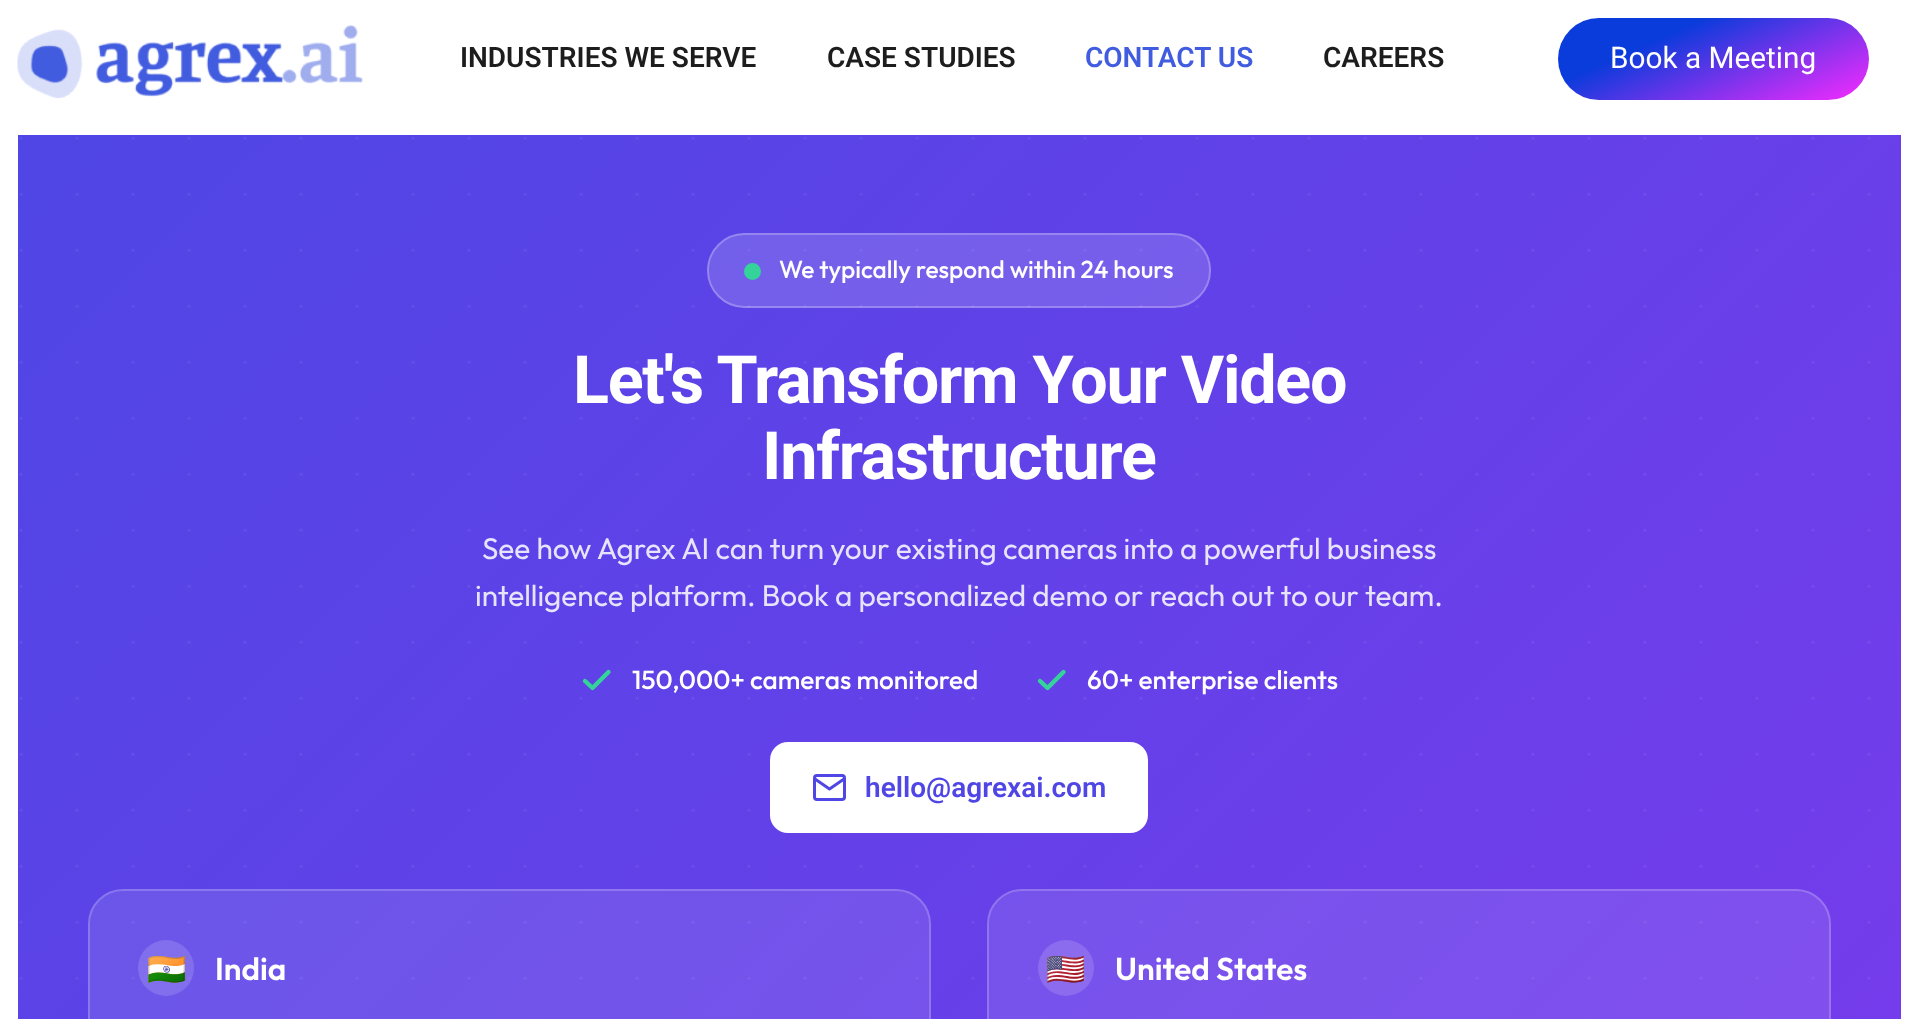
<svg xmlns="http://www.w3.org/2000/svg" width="1917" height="1019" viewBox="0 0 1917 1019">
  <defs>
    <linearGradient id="g1" gradientUnits="userSpaceOnUse" x1="1672" y1="-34" x2="1754" y2="151"><stop offset="0.3" stop-color="rgb(10,59,219)"/><stop offset="1" stop-color="rgb(248,43,254)"/></linearGradient>
    <linearGradient id="g2" gradientUnits="userSpaceOnUse" x1="128" y1="24" x2="1790" y2="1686"><stop offset="0" stop-color="rgb(79,70,229)"/><stop offset="1" stop-color="rgb(124,58,237)"/></linearGradient>
  </defs>
  <rect width="100%" height="100%" fill="rgb(255,255,255)"/>
  <image x="17" y="25" width="346" height="73" href="pic1.png"/>
  <g font-family="Roboto" font-size="28" font-weight="600" fill="rgb(29,29,29)">
    <text x="460" y="67">INDUSTRIES WE SERVE</text>
    <text x="827" y="67">CASE STUDIES</text>
  </g>
  <text x="1085" y="67" font-family="Roboto" font-size="28" font-weight="600" fill="rgb(66,92,223)">CONTACT US</text>
  <text x="1323" y="67" font-family="Roboto" font-size="28" font-weight="600" fill="rgb(29,29,29)">CAREERS</text>
  <rect x="1558" y="18" width="311" height="82" rx="41" fill="url(#g1)"/>
  <text x="1610" y="68" font-family="Roboto" font-size="29.75" fill="rgb(255,255,255)">Book a Meeting</text>
  <rect x="18" y="135" width="1883" height="884" fill="url(#g2)"/>
  <path d="M21 138.2H1869.4" fill="none" stroke="rgba(255,255,255,0.06)" stroke-width="3.5" stroke-linecap="round" stroke-dasharray="0 56"/>
  <path d="M21 194.2H1869.4" fill="none" stroke="rgba(255,255,255,0.06)" stroke-width="3.5" stroke-linecap="round" stroke-dasharray="0 56"/>
  <path d="M21 250.2H1869.4" fill="none" stroke="rgba(255,255,255,0.06)" stroke-width="3.5" stroke-linecap="round" stroke-dasharray="0 56"/>
  <path d="M21 306.2H1869.4" fill="none" stroke="rgba(255,255,255,0.06)" stroke-width="3.5" stroke-linecap="round" stroke-dasharray="0 56"/>
  <path d="M21 362.2H1869.4" fill="none" stroke="rgba(255,255,255,0.06)" stroke-width="3.5" stroke-linecap="round" stroke-dasharray="0 56"/>
  <path d="M21 418.2H1869.4" fill="none" stroke="rgba(255,255,255,0.06)" stroke-width="3.5" stroke-linecap="round" stroke-dasharray="0 56"/>
  <path d="M21 474.2H1869.4" fill="none" stroke="rgba(255,255,255,0.06)" stroke-width="3.5" stroke-linecap="round" stroke-dasharray="0 56"/>
  <path d="M21 530.2H1869.4" fill="none" stroke="rgba(255,255,255,0.06)" stroke-width="3.5" stroke-linecap="round" stroke-dasharray="0 56"/>
  <path d="M21 586.2H1869.4" fill="none" stroke="rgba(255,255,255,0.06)" stroke-width="3.5" stroke-linecap="round" stroke-dasharray="0 56"/>
  <path d="M21 642.2H1869.4" fill="none" stroke="rgba(255,255,255,0.06)" stroke-width="3.5" stroke-linecap="round" stroke-dasharray="0 56"/>
  <path d="M21 698.2H1869.4" fill="none" stroke="rgba(255,255,255,0.06)" stroke-width="3.5" stroke-linecap="round" stroke-dasharray="0 56"/>
  <path d="M21 754.2H1869.4" fill="none" stroke="rgba(255,255,255,0.06)" stroke-width="3.5" stroke-linecap="round" stroke-dasharray="0 56"/>
  <path d="M21 810.2H1869.4" fill="none" stroke="rgba(255,255,255,0.06)" stroke-width="3.5" stroke-linecap="round" stroke-dasharray="0 56"/>
  <path d="M21 866.2H1869.4" fill="none" stroke="rgba(255,255,255,0.06)" stroke-width="3.5" stroke-linecap="round" stroke-dasharray="0 56"/>
  <path d="M21 922.2H1869.4" fill="none" stroke="rgba(255,255,255,0.06)" stroke-width="3.5" stroke-linecap="round" stroke-dasharray="0 56"/>
  <path d="M21 978.2H1869.4" fill="none" stroke="rgba(255,255,255,0.06)" stroke-width="3.5" stroke-linecap="round" stroke-dasharray="0 56"/>
  <rect x="707" y="233" width="504" height="75" rx="37.5" fill="rgba(255,255,255,0.15)"/>
  <rect x="708" y="234" width="502" height="73" rx="36.5" fill="none" stroke="rgba(255,255,255,0.25)" stroke-width="2"/>
  <circle cx="752.5" cy="271.5" r="8.5" fill="rgb(52,211,153)"/>
  <text x="779" y="278" font-family="Outfit" font-size="24.5" font-weight="500" fill="rgb(255,255,255)">We typically respond within 24 hours</text>
  <g font-family="Roboto" font-size="66.5" font-weight="bold" letter-spacing="-1.3" fill="rgb(255,255,255)">
    <text x="573" y="403">Let's Transform Your Video</text>
    <text x="762" y="479">Infrastructure</text>
  </g>
  <g font-family="Outfit" font-size="29.75" fill="rgb(231,227,252)">
    <text x="482" y="559">See how Agrex AI can turn your existing cameras into a powerful business</text>
    <text x="475" y="606">intelligence platform. Book a personalized demo or reach out to our team.</text>
  </g>
  <path d="M608.5 672L592.5 688L585 681" fill="none" stroke="rgb(52,211,153)" stroke-width="4.4" stroke-linecap="round" stroke-linejoin="round"/>
  <text x="632" y="689" font-family="Outfit" font-size="26.25" font-weight="500" fill="rgb(255,255,255)">150,000+ cameras monitored</text>
  <path d="M1063.5 672L1047.5 688L1040 681" fill="none" stroke="rgb(52,211,153)" stroke-width="4.4" stroke-linecap="round" stroke-linejoin="round"/>
  <text x="1087" y="689" font-family="Outfit" font-size="26.25" font-weight="500" fill="rgb(255,255,255)">60+ enterprise clients</text>
  <rect x="770" y="742" width="378" height="91" rx="18" fill="rgb(255,255,255)"/>
  <rect x="814.5" y="775.5" width="30" height="24" rx="2.5" fill="none" stroke="rgb(79,70,229)" stroke-width="3"/>
  <path d="M844 779L829.5 789L815 779" fill="none" stroke="rgb(79,70,229)" stroke-width="2.9" stroke-linecap="round" stroke-linejoin="round"/>
  <text x="865" y="797" font-family="Roboto" font-size="28" font-weight="600" fill="rgb(79,70,229)">hello@agrexai.com</text>
  <rect x="88" y="889" width="843" height="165" rx="35" fill="rgba(255,255,255,0.1)"/>
  <rect x="89" y="890" width="841" height="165" rx="34" fill="none" stroke="rgba(255,255,255,0.2)" stroke-width="2"/>
  <circle cx="166" cy="968" r="28" fill="rgba(255,255,255,0.15)"/>
  <text x="147" y="980" font-family="Noto Color Emoji" font-size="31.5" fill="rgb(51,51,51)">🇮🇳</text>
  <text x="215" y="980" font-family="Outfit" font-size="31.5" font-weight="600" fill="rgb(255,255,255)">India</text>
  <rect x="987" y="889" width="844" height="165" rx="35" fill="rgba(255,255,255,0.1)"/>
  <rect x="988" y="890" width="842" height="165" rx="34" fill="none" stroke="rgba(255,255,255,0.2)" stroke-width="2"/>
  <circle cx="1066" cy="968" r="28" fill="rgba(255,255,255,0.15)"/>
  <text x="1046" y="980" font-family="Noto Color Emoji" font-size="31.5" fill="rgb(51,51,51)">🇺🇸</text>
  <text x="1115" y="980" font-family="Outfit" font-size="31.5" font-weight="600" fill="rgb(255,255,255)">United States</text>
</svg>
